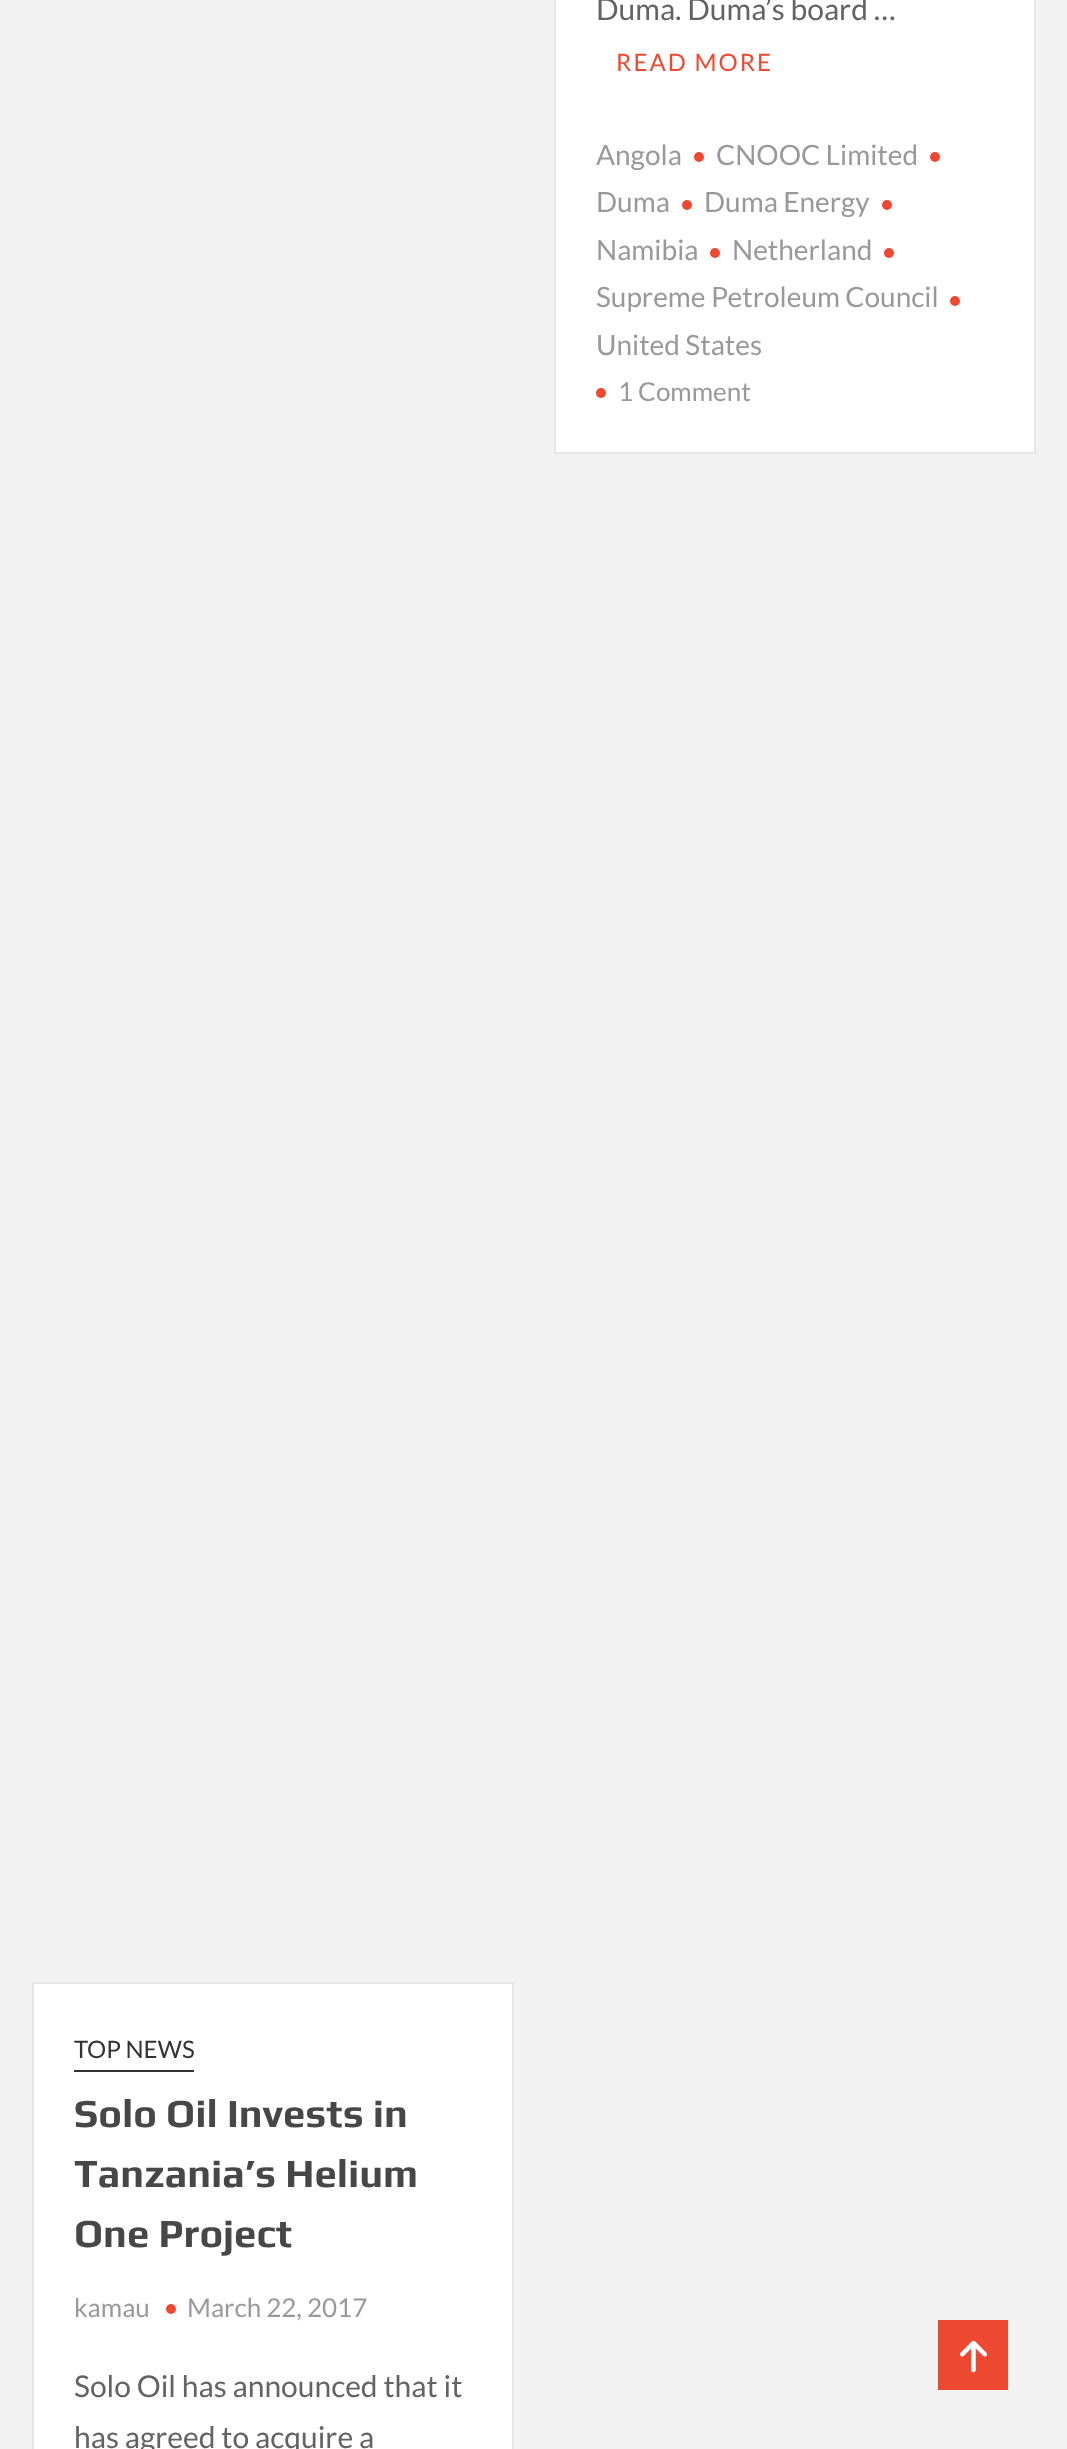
<svg xmlns="http://www.w3.org/2000/svg" width="1067" height="2449" viewBox="0 0 1067 2449">
  <rect width="100%" height="100%" fill="rgb(242,242,242)"/>
  <rect x="555" y="-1" width="480" height="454" fill="rgb(255,255,255)" stroke="rgb(230,230,230)" stroke-width="2"/>
  <text x="596" y="20" font-family="Lato" font-size="30" fill="rgb(99,99,99)">Duma. Duma’s board …</text>
  <text x="616" y="71" font-family="Lato" font-size="24" letter-spacing="2" fill="rgb(238,73,48)">READ MORE</text>
  <text x="596" y="165" font-family="Lato" font-size="28" fill="rgb(153,153,153)">Angola</text>
  <circle cx="699" cy="157" r="5" fill="rgb(238,73,48)"/>
  <text x="716" y="165" font-family="Lato" font-size="28" fill="rgb(153,153,153)">CNOOC Limited</text>
  <circle cx="935" cy="157" r="5" fill="rgb(238,73,48)"/>
  <text x="596" y="212" font-family="Lato" font-size="28" fill="rgb(153,153,153)">Duma</text>
  <circle cx="687" cy="205" r="5" fill="rgb(238,73,48)"/>
  <text x="704" y="212" font-family="Lato" font-size="28" fill="rgb(153,153,153)">Duma Energy</text>
  <circle cx="887" cy="205" r="5" fill="rgb(238,73,48)"/>
  <text x="596" y="260" font-family="Lato" font-size="28" fill="rgb(153,153,153)">Namibia</text>
  <circle cx="715" cy="253" r="5" fill="rgb(238,73,48)"/>
  <text x="732" y="260" font-family="Lato" font-size="28" fill="rgb(153,153,153)">Netherland</text>
  <circle cx="889" cy="253" r="5" fill="rgb(238,73,48)"/>
  <text x="596" y="307" font-family="Lato" font-size="28" fill="rgb(153,153,153)">Supreme Petroleum Council</text>
  <circle cx="955" cy="301" r="5" fill="rgb(238,73,48)"/>
  <text x="596" y="355" font-family="Lato" font-size="28" fill="rgb(153,153,153)">United States</text>
  <circle cx="601" cy="393" r="5" fill="rgb(238,73,48)"/>
  <text x="618" y="401" font-family="Lato" font-size="26" fill="rgb(153,153,153)">1 Comment</text>
  <rect x="33" y="1983" width="480" height="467" fill="rgb(255,255,255)" stroke="rgb(230,230,230)" stroke-width="2"/>
  <rect x="74" y="2070" width="120" height="2" fill="rgb(51,51,51)"/>
  <text x="74" y="2058" font-family="Lato" font-size="24" fill="rgb(51,51,51)">TOP NEWS</text>
  <g font-family="Play" font-size="40" font-weight="bold" fill="rgb(71,71,71)">
    <text>
      <tspan x="74" y="2127">Solo Oil Invests in</tspan>
      <tspan x="74" y="2187">Tanzania’s Helium</tspan>
      <tspan x="74" y="2247">One Project</tspan>
    </text>
  </g>
  <text x="74" y="2317" font-family="Lato" font-size="26" fill="rgb(153,153,153)">kamau</text>
  <circle cx="171" cy="2309" r="5" fill="rgb(238,73,48)"/>
  <text x="187" y="2317" font-family="Lato" font-size="26" fill="rgb(153,153,153)">March 22, 2017</text>
  <g font-family="Lato" font-size="30" fill="rgb(99,99,99)">
    <text>
      <tspan x="74" y="2397">Solo Oil has announced that it</tspan>
      <tspan x="74" y="2448">has agreed to acquire a</tspan>
    </text>
  </g>
  <rect x="938" y="2320" width="70" height="70" fill="rgb(238,73,48)"/>
  <image x="960" y="2340" width="27" height="33" href="pic1.png"/>
</svg>
